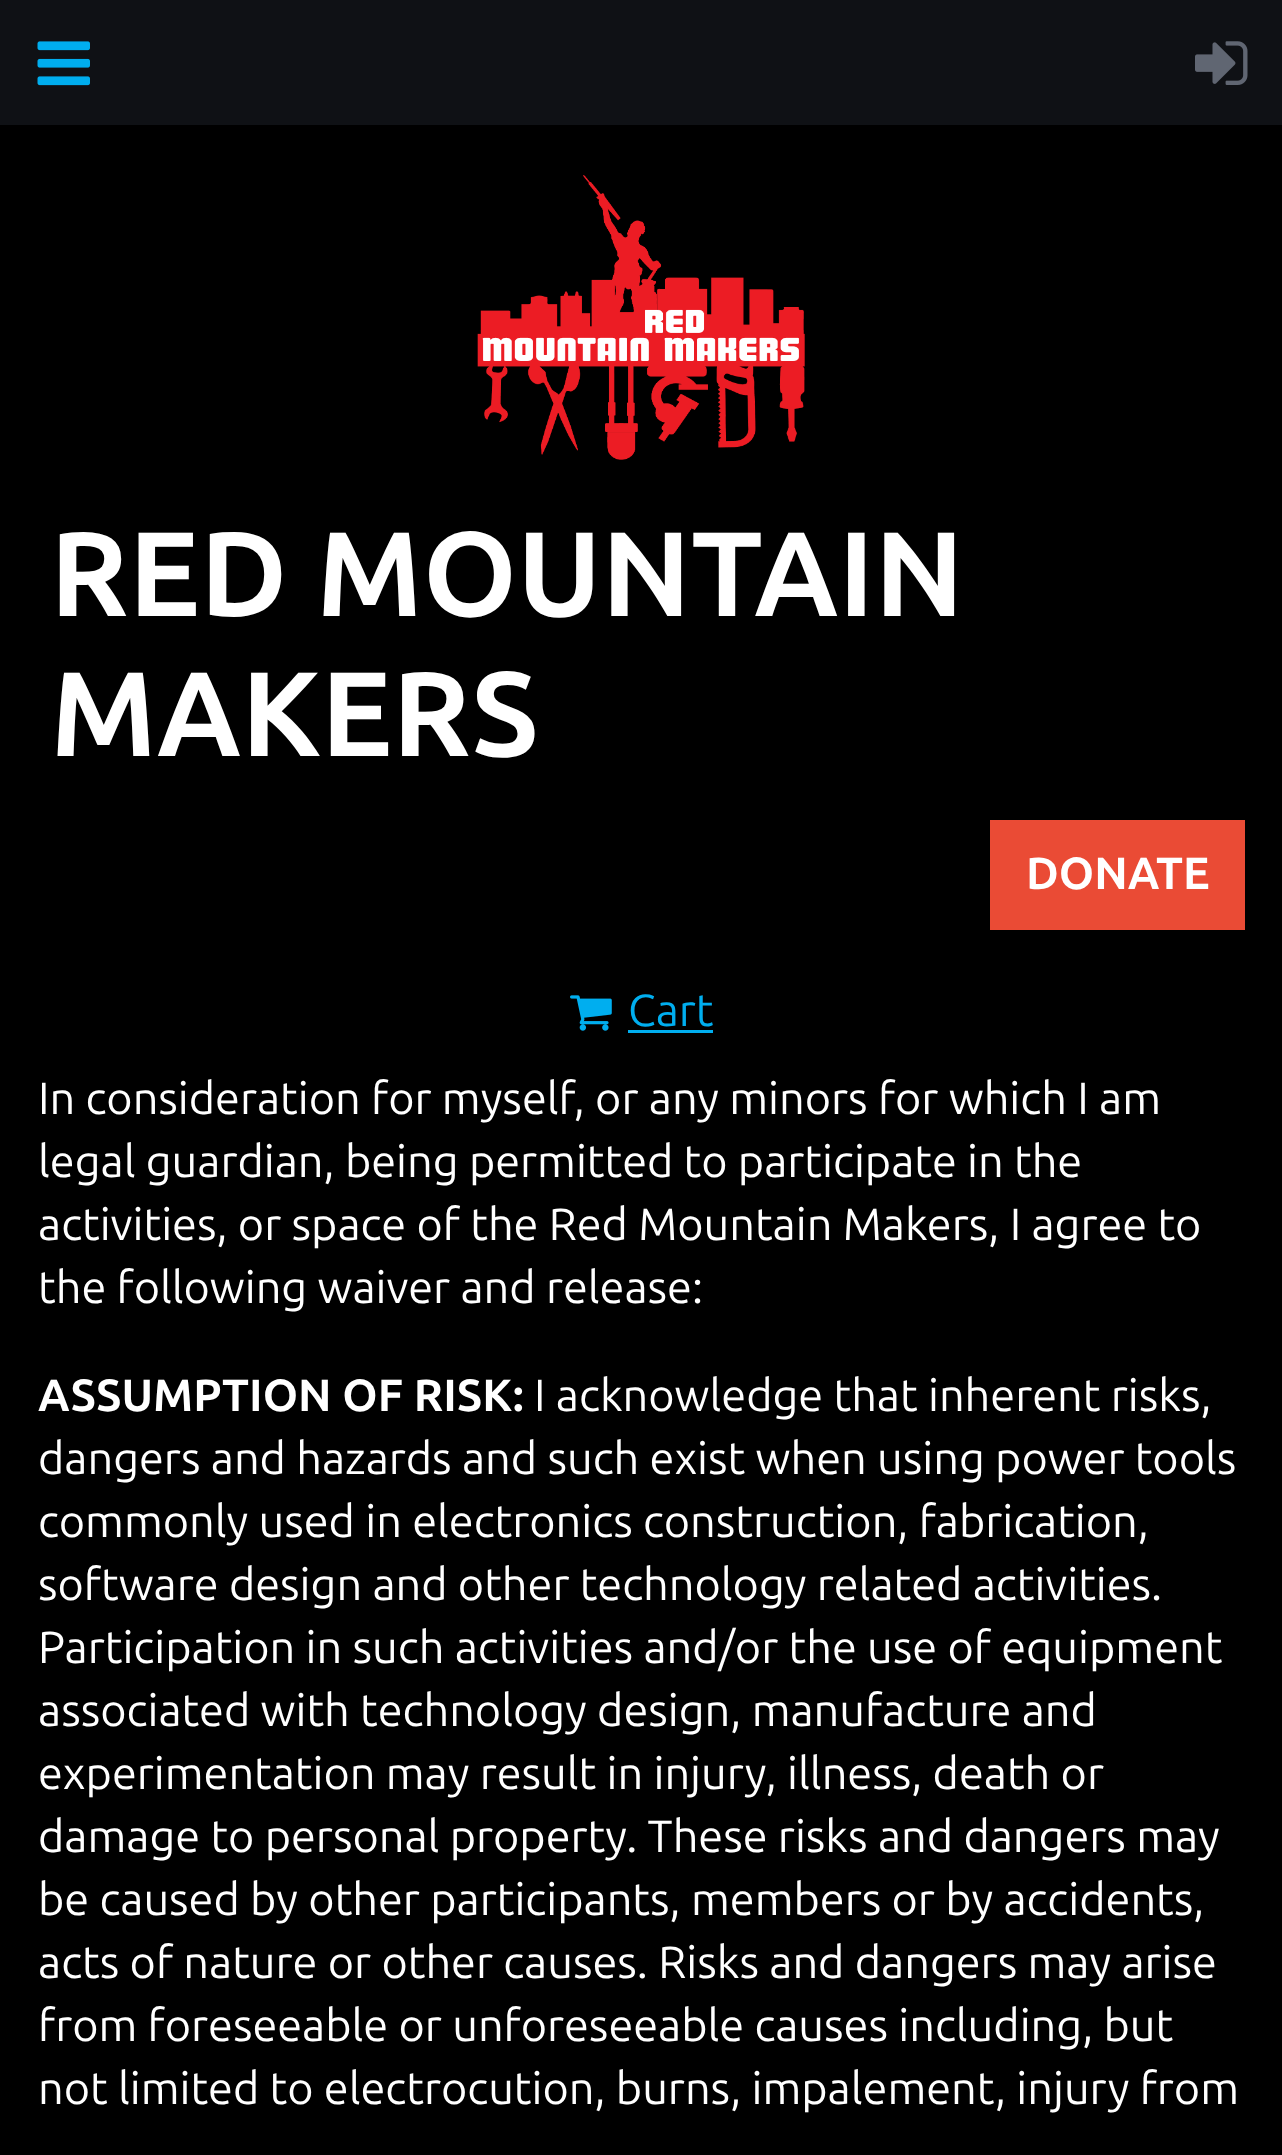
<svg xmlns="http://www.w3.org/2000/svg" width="1282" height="2155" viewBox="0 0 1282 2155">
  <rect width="100%" height="100%" fill="rgb(0,0,0)"/>
  <rect x="0" y="0" width="1282" height="125" fill="rgb(15,17,21)"/>
  <image x="37" y="41" width="53" height="45" href="pic1.png"/>
  <image x="1195" y="41" width="53" height="44" href="pic2.png"/>
  <image x="477" y="175" width="328" height="285" href="pic3.png"/>
  <g font-family="Ubuntu" font-size="120" font-weight="bold" fill="rgb(255,255,255)">
    <text>
      <tspan x="50" y="616">RED MOUNTAIN</tspan>
      <tspan x="50" y="756">MAKERS</tspan>
    </text>
  </g>
  <rect x="990" y="820" width="255" height="110" fill="rgb(234,75,53)"/>
  <text x="1026" y="889" font-family="Ubuntu" font-size="45" font-weight="bold" fill="rgb(255,255,255)">DONATE</text>
  <image x="570" y="995" width="42" height="36" href="pic4.png"/>
  <text x="628" y="1026" font-family="Ubuntu" font-size="45" fill="rgb(0,174,239)">Cart</text>
  <rect x="628" y="1030" width="85" height="3" fill="rgb(0,174,239)"/>
  <g font-family="Ubuntu" font-size="45" fill="rgb(255,255,255)">
    <text>
      <tspan x="38" y="1114">In consideration for myself, or any minors for which I am</tspan>
      <tspan x="38" y="1177">legal guardian, being permitted to participate in the</tspan>
      <tspan x="38" y="1240">activities, or space of the Red Mountain Makers, I agree to</tspan>
      <tspan x="38" y="1303">the following waiver and release:</tspan>
    </text>
  </g>
  <text x="38" y="1411" font-family="Ubuntu" font-size="45" font-weight="bold" fill="rgb(255,255,255)">ASSUMPTION OF RISK:</text>
  <g font-family="Ubuntu" font-size="45" fill="rgb(255,255,255)">
    <text x="534" y="1411">I acknowledge that inherent risks,</text>
    <text>
      <tspan x="38" y="1474">dangers and hazards and such exist when using power tools</tspan>
      <tspan x="38" y="1537">commonly used in electronics construction, fabrication,</tspan>
      <tspan x="38" y="1600">software design and other technology related activities.</tspan>
      <tspan x="38" y="1663">Participation in such activities and/or the use of equipment</tspan>
      <tspan x="38" y="1726">associated with technology design, manufacture and</tspan>
      <tspan x="38" y="1789">experimentation may result in injury, illness, death or</tspan>
      <tspan x="38" y="1852">damage to personal property. These risks and dangers may</tspan>
      <tspan x="38" y="1915">be caused by other participants, members or by accidents,</tspan>
      <tspan x="38" y="1978">acts of nature or other causes. Risks and dangers may arise</tspan>
      <tspan x="38" y="2041">from foreseeable or unforeseeable causes including, but</tspan>
      <tspan x="38" y="2104">not limited to electrocution, burns, impalement, injury from</tspan>
    </text>
  </g>
</svg>
